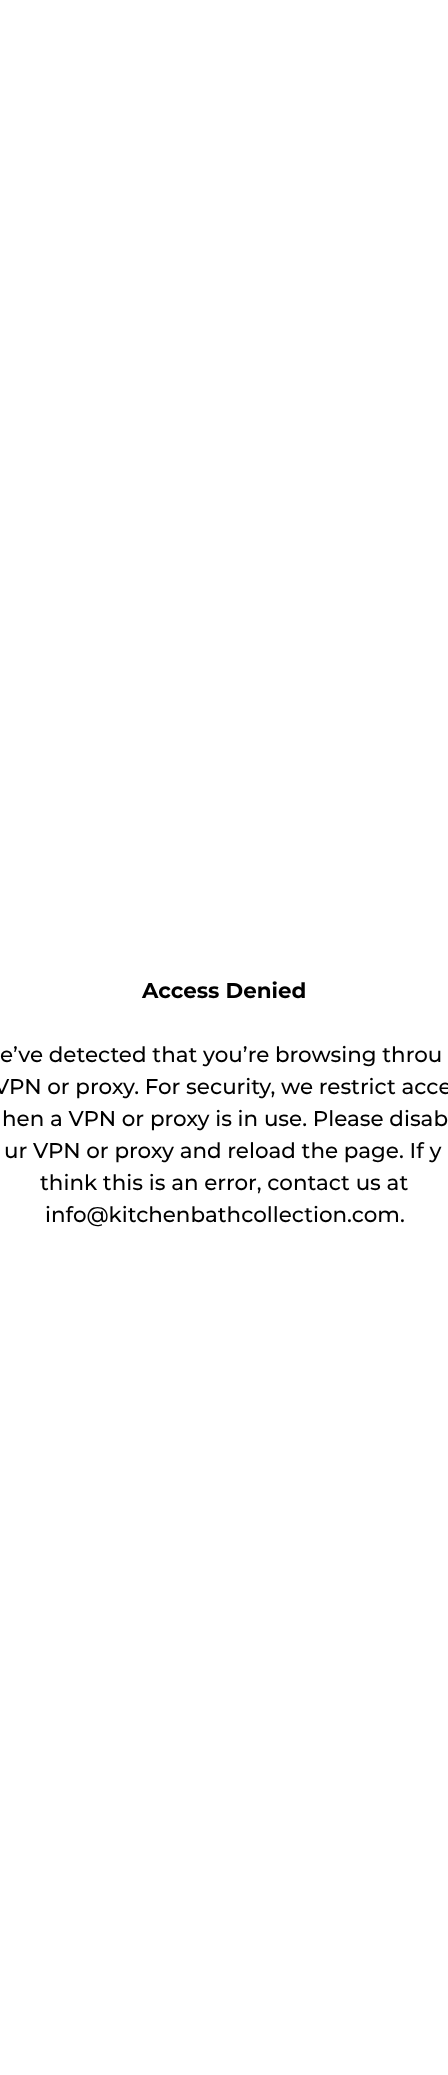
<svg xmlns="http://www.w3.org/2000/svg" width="448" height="2075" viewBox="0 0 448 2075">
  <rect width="100%" height="100%" fill="rgb(255,255,255)"/>
  <text x="142" y="998" font-family="Montserrat" font-size="21.4" font-weight="bold" fill="rgb(0,0,0)">Access Denied</text>
  <g font-family="Montserrat" font-size="21.4" font-weight="500" fill="rgb(0,0,0)">
    <text x="0" y="1062">e’ve detected that you’re browsing throu</text>
    <text x="-6" y="1094">VPN or proxy. For security, we restrict acce</text>
    <text x="2" y="1126">hen a VPN or proxy is in use. Please disab</text>
    <text x="4" y="1158">ur VPN or proxy and reload the page. If y</text>
    <text x="40" y="1190">think this is an error, contact us at</text>
    <text x="45" y="1222">info@kitchenbathcollection.com.</text>
  </g>
</svg>
